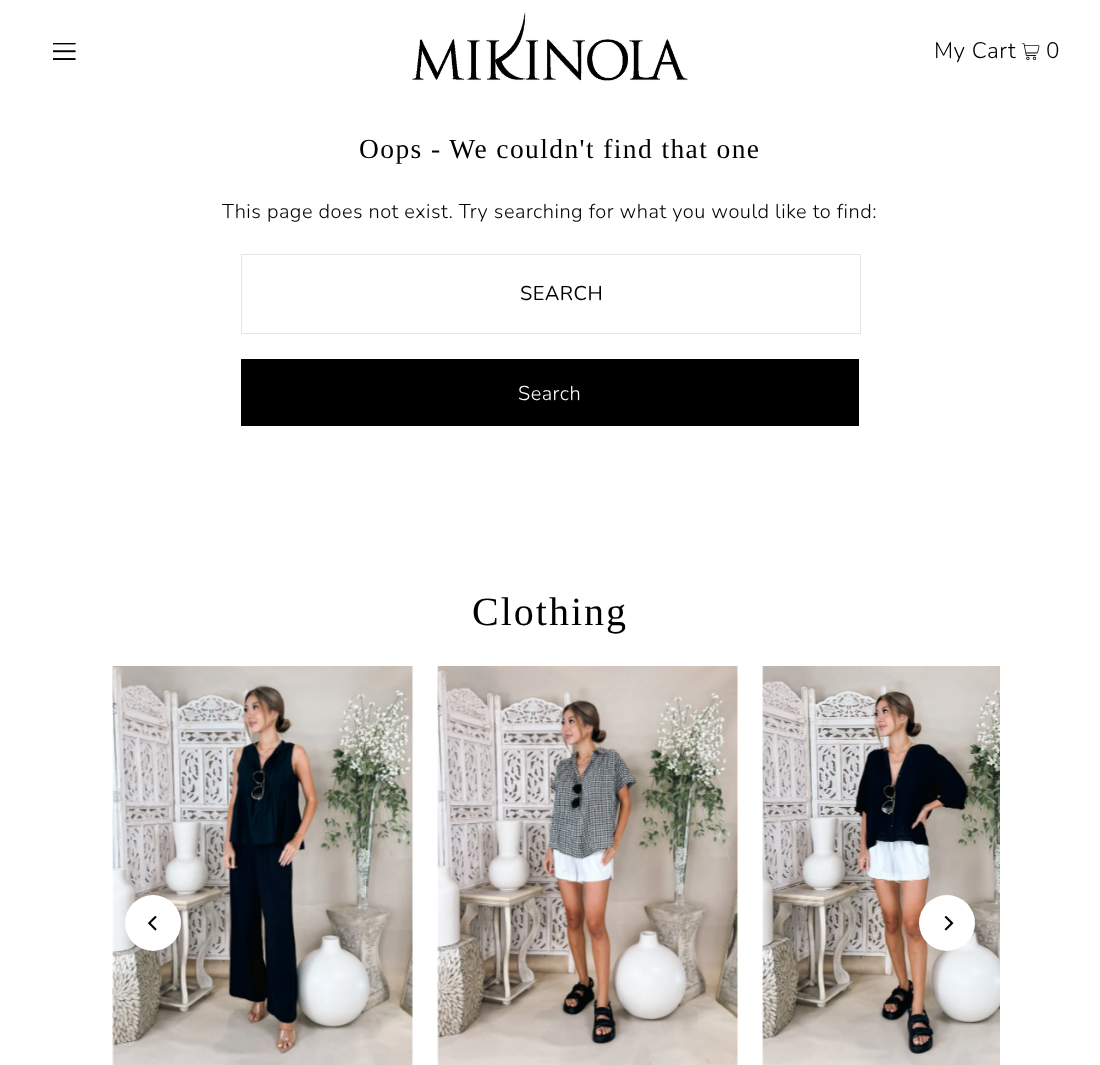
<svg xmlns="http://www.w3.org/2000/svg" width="1100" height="1065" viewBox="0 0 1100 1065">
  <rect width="100%" height="100%" fill="rgb(255,255,255)"/>
  <image x="53" y="43" width="23" height="17" href="pic1.png"/>
  <image x="412" y="12" width="276" height="69" href="pic2.png"/>
  <text x="934" y="58" font-family="Nunito" font-size="22.5" font-weight="300" letter-spacing="0.5" fill="rgb(0,0,0)">My Cart</text>
  <image x="1021" y="43" width="19" height="17" href="pic3.png"/>
  <text x="1046" y="58" font-family="Nunito" font-size="22.5" font-weight="300" letter-spacing="0.5" fill="rgb(0,0,0)">0</text>
  <text x="359" y="158" font-family="Liberation Serif" font-size="27.5" letter-spacing="1.4" fill="rgb(0,0,0)">Oops - We couldn't find that one</text>
  <text x="222" y="218" font-family="Nunito" font-size="20" font-weight="300" letter-spacing="0.5" fill="rgb(0,0,0)">This page does not exist. Try searching for what you would like to find:</text>
  <rect x="241.5" y="254.5" width="619" height="79" fill="none" stroke="rgb(229,229,229)"/>
  <text x="520" y="300" font-family="Nunito" font-size="20" letter-spacing="0.5" fill="rgb(0,0,0)">SEARCH</text>
  <rect x="241" y="359" width="618" height="67" fill="rgb(0,0,0)"/>
  <text x="518" y="400" font-family="Nunito" font-size="20" font-weight="300" letter-spacing="0.5" fill="rgb(255,255,255)">Search</text>
  <text x="472" y="625" font-family="Liberation Serif" font-size="40" letter-spacing="2" fill="rgb(0,0,0)">Clothing</text>
  <image x="112" y="666" width="302" height="399" href="pic4.png"/>
  <image x="437" y="666" width="301" height="399" href="pic5.png"/>
  <image x="762" y="666" width="238" height="399" href="pic6.png"/>
  <circle cx="153" cy="923" r="28" fill="rgb(255,255,255)"/>
  <image x="147" y="916" width="10" height="15" href="pic7.png"/>
  <circle cx="947" cy="923" r="28" fill="rgb(255,255,255)"/>
  <image x="944" y="916" width="10" height="15" href="pic8.png"/>
</svg>
